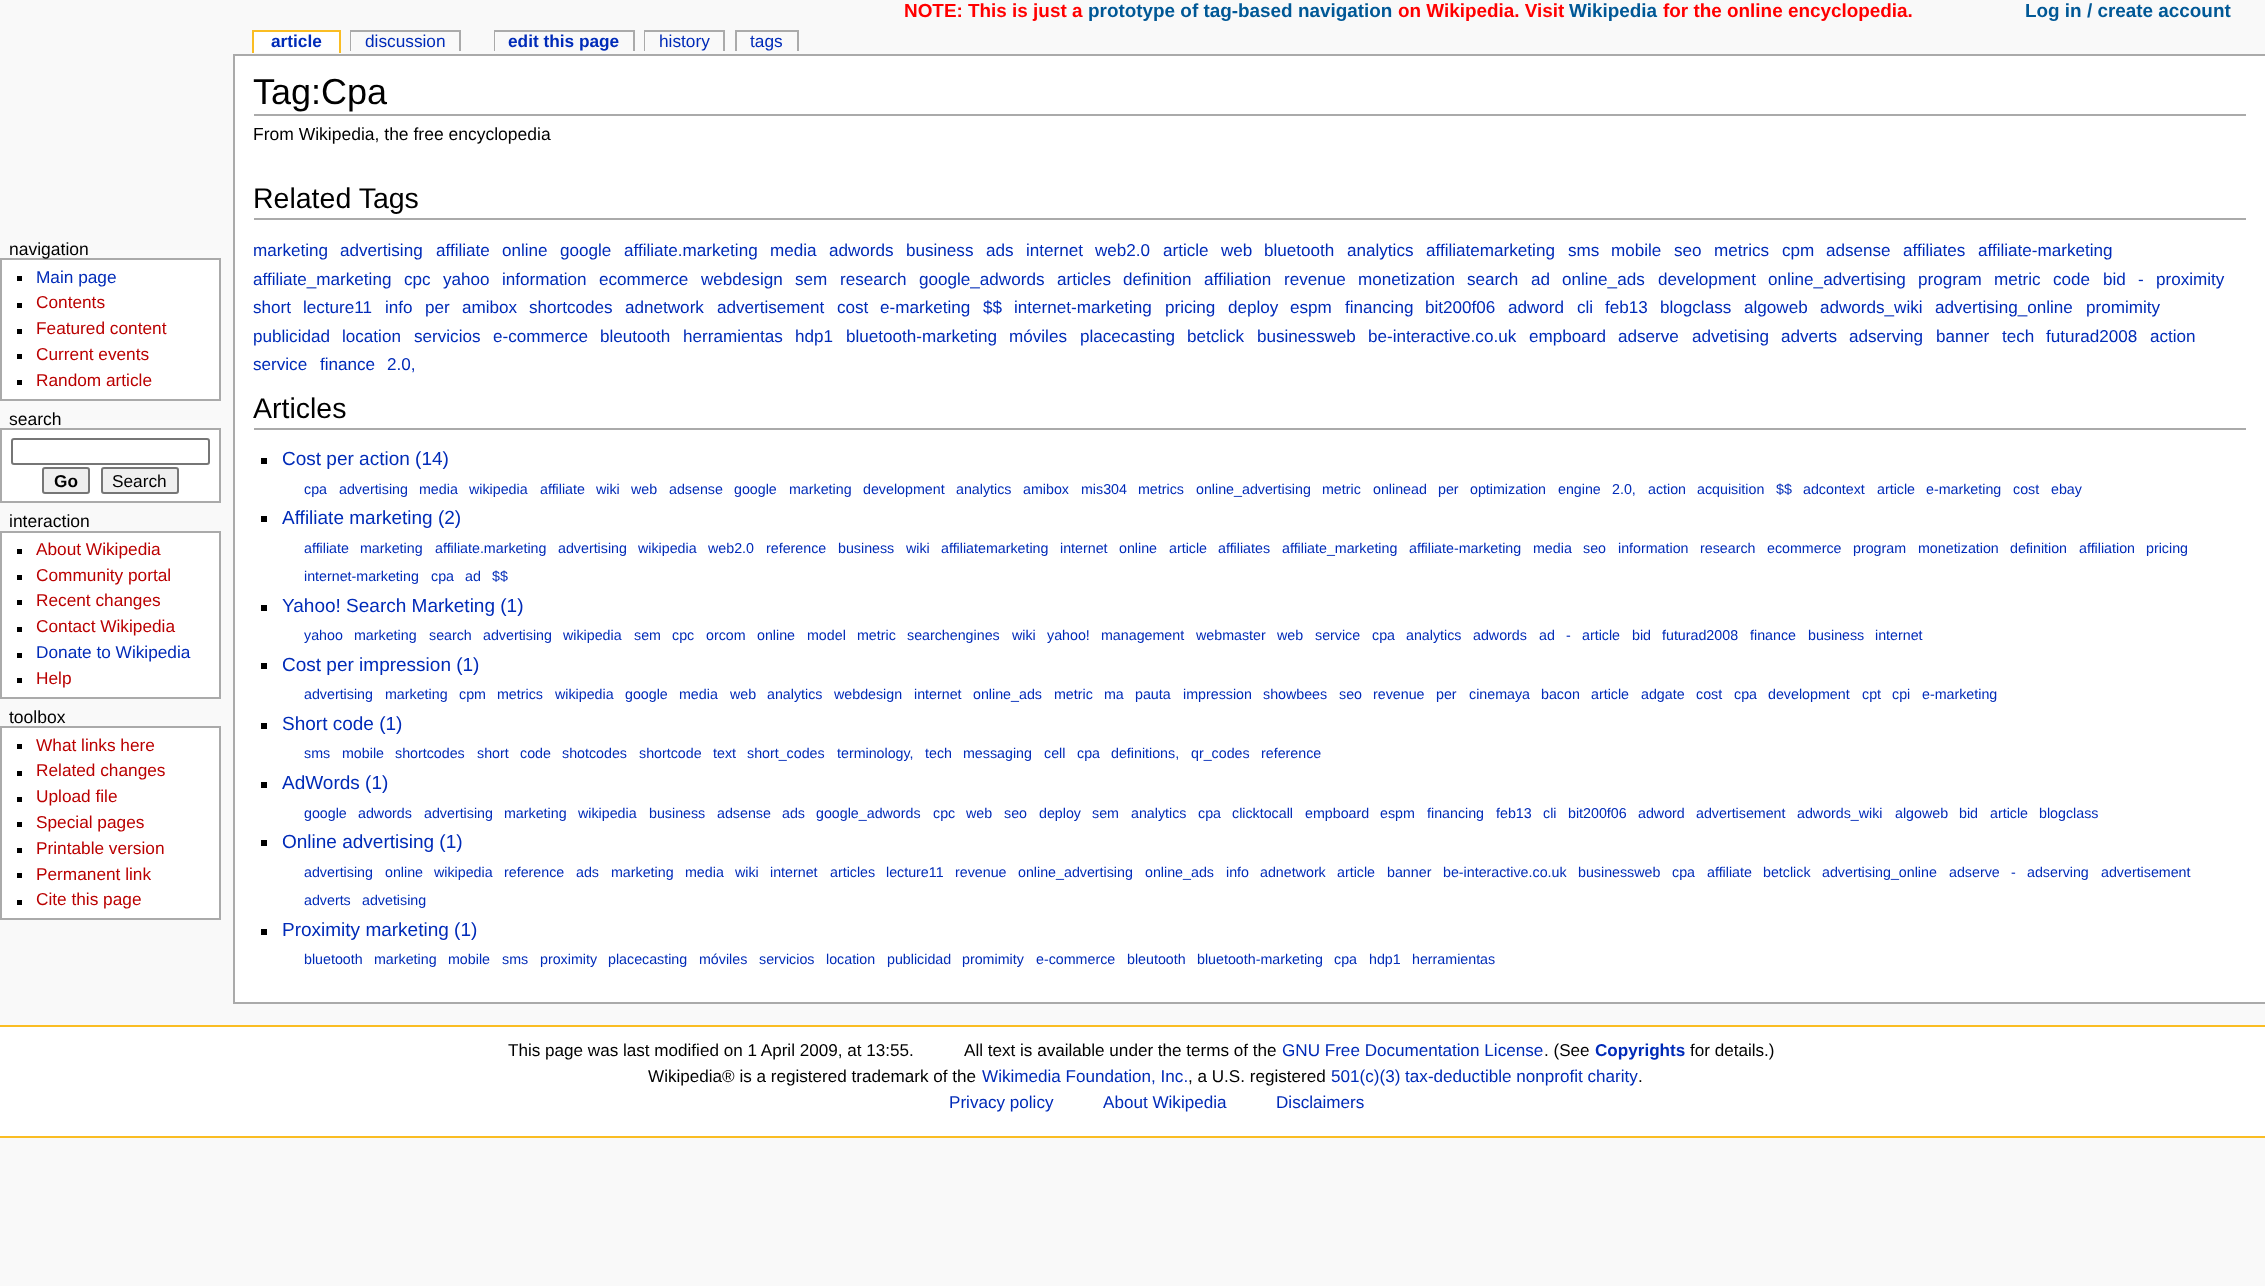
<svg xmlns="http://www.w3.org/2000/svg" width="2265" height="1286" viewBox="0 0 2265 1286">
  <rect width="100%" height="100%" fill="rgb(249,249,249)"/>
  <text x="904" y="17" font-family="Liberation Sans" font-size="18.9" font-weight="bold" fill="rgb(255,0,0)">NOTE: This is just a</text>
  <text x="1088" y="17" font-family="Liberation Sans" font-size="18.9" font-weight="bold" fill="rgb(0,88,150)">prototype of tag-based navigation</text>
  <text x="1398" y="17" font-family="Liberation Sans" font-size="18.9" font-weight="bold" fill="rgb(255,0,0)">on Wikipedia. Visit</text>
  <text x="1569" y="17" font-family="Liberation Sans" font-size="18.9" font-weight="bold" fill="rgb(0,88,150)">Wikipedia</text>
  <text x="1663" y="17" font-family="Liberation Sans" font-size="18.9" font-weight="bold" fill="rgb(255,0,0)">for the online encyclopedia.</text>
  <text x="2025" y="17" font-family="Liberation Sans" font-size="18.9" font-weight="bold" fill="rgb(0,88,150)">Log in / create account</text>
  <rect x="254" y="32" width="85" height="21" fill="rgb(255,255,255)"/>
  <text x="271" y="47" font-family="Liberation Sans" font-size="17.25" font-weight="bold" fill="rgb(0,43,184)">article</text>
  <rect x="252" y="30" width="89" height="2" fill="rgb(250,189,35)"/>
  <rect x="339" y="30" width="2" height="23" fill="rgb(250,189,35)"/>
  <rect x="252" y="30" width="2" height="23" fill="rgb(250,189,35)"/>
  <text x="365" y="47" font-family="Liberation Sans" font-size="17.25" fill="rgb(0,43,184)">discussion</text>
  <rect x="350" y="30" width="111" height="2" fill="rgb(170,170,170)"/>
  <rect x="459" y="30" width="2" height="21" fill="rgb(170,170,170)"/>
  <rect x="350" y="30" width="2" height="21" fill="rgb(170,170,170)"/>
  <rect x="351" y="32" width="1" height="19" fill="rgb(251,251,251)"/>
  <text x="508" y="47" font-family="Liberation Sans" font-size="17.25" font-weight="bold" fill="rgb(0,43,184)">edit this page</text>
  <rect x="494" y="30" width="141" height="2" fill="rgb(170,170,170)"/>
  <rect x="633" y="30" width="2" height="21" fill="rgb(170,170,170)"/>
  <rect x="494" y="30" width="2" height="21" fill="rgb(170,170,170)"/>
  <rect x="495" y="32" width="1" height="19" fill="rgb(251,251,251)"/>
  <text x="659" y="47" font-family="Liberation Sans" font-size="17.25" fill="rgb(0,43,184)">history</text>
  <rect x="644" y="30" width="81" height="2" fill="rgb(170,170,170)"/>
  <rect x="723" y="30" width="2" height="21" fill="rgb(170,170,170)"/>
  <rect x="644" y="30" width="2" height="21" fill="rgb(170,170,170)"/>
  <rect x="645" y="32" width="1" height="19" fill="rgb(251,251,251)"/>
  <text x="750" y="47" font-family="Liberation Sans" font-size="17.25" fill="rgb(0,43,184)">tags</text>
  <rect x="735" y="30" width="63" height="2" fill="rgb(170,170,170)"/>
  <rect x="797" y="30" width="2" height="21" fill="rgb(170,170,170)"/>
  <rect x="735" y="30" width="2" height="21" fill="rgb(170,170,170)"/>
  <rect x="1" y="259" width="219" height="141" fill="rgb(255,255,255)" stroke="rgb(170,170,170)" stroke-width="2"/>
  <text x="9" y="255" font-family="Liberation Sans" font-size="17.5" fill="rgb(0,0,0)">navigation</text>
  <rect x="17" y="276" width="5" height="5" fill="rgb(0,0,0)"/>
  <text x="36" y="283" font-family="Liberation Sans" font-size="17.25" fill="rgb(0,43,184)">Main page</text>
  <rect x="17" y="303" width="5" height="5" fill="rgb(0,0,0)"/>
  <text x="36" y="308" font-family="Liberation Sans" font-size="17.25" fill="rgb(186,0,0)">Contents</text>
  <rect x="17" y="329" width="5" height="5" fill="rgb(0,0,0)"/>
  <text x="36" y="334" font-family="Liberation Sans" font-size="17.25" fill="rgb(186,0,0)">Featured content</text>
  <rect x="17" y="354" width="5" height="5" fill="rgb(0,0,0)"/>
  <text x="36" y="360" font-family="Liberation Sans" font-size="17.25" fill="rgb(186,0,0)">Current events</text>
  <rect x="17" y="380" width="5" height="5" fill="rgb(0,0,0)"/>
  <text x="36" y="386" font-family="Liberation Sans" font-size="17.25" fill="rgb(186,0,0)">Random article</text>
  <text x="9" y="425" font-family="Liberation Sans" font-size="17.5" fill="rgb(0,0,0)">search</text>
  <rect x="1" y="429" width="219" height="73" fill="rgb(255,255,255)" stroke="rgb(170,170,170)" stroke-width="2"/>
  <rect x="12" y="439" width="197" height="25" rx="2" fill="none" stroke="rgb(118,118,118)" stroke-width="2"/>
  <rect x="43" y="468" width="46" height="25" rx="2" fill="rgb(239,239,239)" stroke="rgb(118,118,118)" stroke-width="2"/>
  <text x="54" y="487" font-family="Liberation Sans" font-size="17.25" font-weight="bold" fill="rgb(0,0,0)">Go</text>
  <rect x="102" y="468" width="76" height="25" rx="2" fill="rgb(239,239,239)" stroke="rgb(118,118,118)" stroke-width="2"/>
  <text x="112" y="487" font-family="Liberation Sans" font-size="17.25" fill="rgb(0,0,0)">Search</text>
  <text x="9" y="527" font-family="Liberation Sans" font-size="17.5" fill="rgb(0,0,0)">interaction</text>
  <rect x="1" y="532" width="219" height="166" fill="rgb(255,255,255)" stroke="rgb(170,170,170)" stroke-width="2"/>
  <rect x="17" y="549" width="5" height="5" fill="rgb(0,0,0)"/>
  <text x="36" y="555" font-family="Liberation Sans" font-size="17.25" fill="rgb(186,0,0)">About Wikipedia</text>
  <rect x="17" y="575" width="5" height="5" fill="rgb(0,0,0)"/>
  <text x="36" y="581" font-family="Liberation Sans" font-size="17.25" fill="rgb(186,0,0)">Community portal</text>
  <rect x="17" y="600" width="5" height="5" fill="rgb(0,0,0)"/>
  <text x="36" y="606" font-family="Liberation Sans" font-size="17.25" fill="rgb(186,0,0)">Recent changes</text>
  <rect x="17" y="627" width="5" height="5" fill="rgb(0,0,0)"/>
  <text x="36" y="632" font-family="Liberation Sans" font-size="17.25" fill="rgb(186,0,0)">Contact Wikipedia</text>
  <rect x="17" y="653" width="5" height="5" fill="rgb(0,0,0)"/>
  <text x="36" y="658" font-family="Liberation Sans" font-size="17.25" fill="rgb(0,43,184)">Donate to Wikipedia</text>
  <rect x="17" y="678" width="5" height="5" fill="rgb(0,0,0)"/>
  <text x="36" y="684" font-family="Liberation Sans" font-size="17.25" fill="rgb(186,0,0)">Help</text>
  <text x="9" y="723" font-family="Liberation Sans" font-size="17.5" fill="rgb(0,0,0)">toolbox</text>
  <rect x="1" y="727" width="219" height="192" fill="rgb(255,255,255)" stroke="rgb(170,170,170)" stroke-width="2"/>
  <rect x="17" y="744" width="5" height="5" fill="rgb(0,0,0)"/>
  <text x="36" y="751" font-family="Liberation Sans" font-size="17.25" fill="rgb(186,0,0)">What links here</text>
  <rect x="17" y="771" width="5" height="5" fill="rgb(0,0,0)"/>
  <text x="36" y="776" font-family="Liberation Sans" font-size="17.25" fill="rgb(186,0,0)">Related changes</text>
  <rect x="17" y="797" width="5" height="5" fill="rgb(0,0,0)"/>
  <text x="36" y="802" font-family="Liberation Sans" font-size="17.25" fill="rgb(186,0,0)">Upload file</text>
  <rect x="17" y="822" width="5" height="5" fill="rgb(0,0,0)"/>
  <text x="36" y="828" font-family="Liberation Sans" font-size="17.25" fill="rgb(186,0,0)">Special pages</text>
  <rect x="17" y="848" width="5" height="5" fill="rgb(0,0,0)"/>
  <text x="36" y="854" font-family="Liberation Sans" font-size="17.25" fill="rgb(186,0,0)">Printable version</text>
  <rect x="17" y="873" width="5" height="5" fill="rgb(0,0,0)"/>
  <text x="36" y="880" font-family="Liberation Sans" font-size="17.25" fill="rgb(186,0,0)">Permanent link</text>
  <rect x="17" y="900" width="5" height="5" fill="rgb(0,0,0)"/>
  <text x="36" y="905" font-family="Liberation Sans" font-size="17.25" fill="rgb(186,0,0)">Cite this page</text>
  <rect x="235" y="56" width="2030" height="946" fill="rgb(255,255,255)"/>
  <rect x="233" y="54" width="2032" height="2" fill="rgb(170,170,170)"/>
  <rect x="233" y="1002" width="2032" height="2" fill="rgb(170,170,170)"/>
  <rect x="233" y="54" width="2" height="950" fill="rgb(170,170,170)"/>
  <rect x="254" y="114" width="1992" height="2" fill="rgb(170,170,170)"/>
  <text x="253" y="104" font-family="Liberation Sans" font-size="36" fill="rgb(0,0,0)">Tag:Cpa</text>
  <text x="253" y="140" font-family="Liberation Sans" font-size="17.5" fill="rgb(0,0,0)">From Wikipedia, the free encyclopedia</text>
  <rect x="254" y="218" width="1992" height="2" fill="rgb(170,170,170)"/>
  <text x="253" y="208" font-family="Liberation Sans" font-size="28.5" fill="rgb(0,0,0)">Related Tags</text>
  <g font-family="Liberation Sans" font-size="17.1" fill="rgb(0,43,184)">
    <text x="253" y="256">marketing</text>
    <text x="340" y="256">advertising</text>
    <text x="436" y="256">affiliate</text>
    <text x="502" y="256">online</text>
    <text x="560" y="256">google</text>
    <text x="624" y="256">affiliate.marketing</text>
    <text x="770" y="256">media</text>
    <text x="829" y="256">adwords</text>
    <text x="906" y="256">business</text>
    <text x="986" y="256">ads</text>
    <text x="1026" y="256">internet</text>
    <text x="1095" y="256">web2.0</text>
    <text x="1163" y="256">article</text>
    <text x="1221" y="256">web</text>
    <text x="1264" y="256">bluetooth</text>
    <text x="1347" y="256">analytics</text>
    <text x="1426" y="256">affiliatemarketing</text>
    <text x="1568" y="256">sms</text>
    <text x="1611" y="256">mobile</text>
    <text x="1674" y="256">seo</text>
    <text x="1714" y="256">metrics</text>
    <text x="1782" y="256">cpm</text>
    <text x="1826" y="256">adsense</text>
    <text x="1903" y="256">affiliates</text>
    <text x="1978" y="256">affiliate-marketing</text>
    <text x="253" y="285">affiliate_marketing</text>
    <text x="404" y="285">cpc</text>
    <text x="443" y="285">yahoo</text>
    <text x="502" y="285">information</text>
    <text x="599" y="285">ecommerce</text>
    <text x="701" y="285">webdesign</text>
    <text x="795" y="285">sem</text>
    <text x="840" y="285">research</text>
    <text x="919" y="285">google_adwords</text>
    <text x="1057" y="285">articles</text>
    <text x="1123" y="285">definition</text>
    <text x="1204" y="285">affiliation</text>
    <text x="1284" y="285">revenue</text>
    <text x="1358" y="285">monetization</text>
    <text x="1467" y="285">search</text>
    <text x="1531" y="285">ad</text>
    <text x="1562" y="285">online_ads</text>
    <text x="1658" y="285">development</text>
    <text x="1768" y="285">online_advertising</text>
    <text x="1918" y="285">program</text>
    <text x="1994" y="285">metric</text>
    <text x="2053" y="285">code</text>
    <text x="2103" y="285">bid</text>
    <text x="2138" y="285">-</text>
    <text x="2156" y="285">proximity</text>
    <text x="253" y="313">short</text>
    <text x="303" y="313">lecture11</text>
    <text x="385" y="313">info</text>
    <text x="425" y="313">per</text>
    <text x="462" y="313">amibox</text>
    <text x="529" y="313">shortcodes</text>
    <text x="625" y="313">adnetwork</text>
    <text x="717" y="313">advertisement</text>
    <text x="837" y="313">cost</text>
    <text x="880" y="313">e-marketing</text>
    <text x="983" y="313">$$</text>
    <text x="1014" y="313">internet-marketing</text>
    <text x="1165" y="313">pricing</text>
    <text x="1228" y="313">deploy</text>
    <text x="1290" y="313">espm</text>
    <text x="1345" y="313">financing</text>
    <text x="1425" y="313">bit200f06</text>
    <text x="1508" y="313">adword</text>
    <text x="1577" y="313">cli</text>
    <text x="1605" y="313">feb13</text>
    <text x="1660" y="313">blogclass</text>
    <text x="1744" y="313">algoweb</text>
    <text x="1820" y="313">adwords_wiki</text>
    <text x="1935" y="313">advertising_online</text>
    <text x="2086" y="313">promimity</text>
    <text x="253" y="342">publicidad</text>
    <text x="342" y="342">location</text>
    <text x="414" y="342">servicios</text>
    <text x="493" y="342">e-commerce</text>
    <text x="600" y="342">bleutooth</text>
    <text x="683" y="342">herramientas</text>
    <text x="795" y="342">hdp1</text>
    <text x="846" y="342">bluetooth-marketing</text>
    <text x="1009" y="342">móviles</text>
    <text x="1080" y="342">placecasting</text>
    <text x="1187" y="342">betclick</text>
    <text x="1257" y="342">businessweb</text>
    <text x="1368" y="342">be-interactive.co.uk</text>
    <text x="1529" y="342">empboard</text>
    <text x="1618" y="342">adserve</text>
    <text x="1692" y="342">advetising</text>
    <text x="1781" y="342">adverts</text>
    <text x="1849" y="342">adserving</text>
    <text x="1936" y="342">banner</text>
    <text x="2002" y="342">tech</text>
    <text x="2046" y="342">futurad2008</text>
    <text x="2150" y="342">action</text>
    <text x="253" y="370">service</text>
    <text x="320" y="370">finance</text>
    <text x="387" y="370">2.0,</text>
  </g>
  <rect x="254" y="428" width="1992" height="2" fill="rgb(170,170,170)"/>
  <text x="253" y="418" font-family="Liberation Sans" font-size="28.5" fill="rgb(0,0,0)">Articles</text>
  <rect x="261" y="458" width="6" height="6" fill="rgb(0,0,0)"/>
  <text x="282" y="465" font-family="Liberation Sans" font-size="19" fill="rgb(0,43,184)">Cost per action (14)</text>
  <g font-family="Liberation Sans" font-size="14.25" fill="rgb(0,43,184)">
    <text x="304" y="494">cpa</text>
    <text x="339" y="494">advertising</text>
    <text x="419" y="494">media</text>
    <text x="469" y="494">wikipedia</text>
    <text x="540" y="494">affiliate</text>
    <text x="596" y="494">wiki</text>
    <text x="631" y="494">web</text>
    <text x="669" y="494">adsense</text>
    <text x="734" y="494">google</text>
    <text x="789" y="494">marketing</text>
    <text x="863" y="494">development</text>
    <text x="956" y="494">analytics</text>
    <text x="1023" y="494">amibox</text>
    <text x="1081" y="494">mis304</text>
    <text x="1138" y="494">metrics</text>
    <text x="1196" y="494">online_advertising</text>
    <text x="1322" y="494">metric</text>
    <text x="1373" y="494">onlinead</text>
    <text x="1438" y="494">per</text>
    <text x="1470" y="494">optimization</text>
    <text x="1558" y="494">engine</text>
    <text x="1612" y="494">2.0,</text>
    <text x="1648" y="494">action</text>
    <text x="1697" y="494">acquisition</text>
    <text x="1776" y="494">$$</text>
    <text x="1803" y="494">adcontext</text>
    <text x="1877" y="494">article</text>
    <text x="1926" y="494">e-marketing</text>
    <text x="2013" y="494">cost</text>
    <text x="2051" y="494">ebay</text>
  </g>
  <rect x="261" y="516" width="6" height="6" fill="rgb(0,0,0)"/>
  <text x="282" y="524" font-family="Liberation Sans" font-size="19" fill="rgb(0,43,184)">Affiliate marketing (2)</text>
  <g font-family="Liberation Sans" font-size="14.25" fill="rgb(0,43,184)">
    <text x="304" y="553">affiliate</text>
    <text x="360" y="553">marketing</text>
    <text x="435" y="553">affiliate.marketing</text>
    <text x="558" y="553">advertising</text>
    <text x="638" y="553">wikipedia</text>
    <text x="708" y="553">web2.0</text>
    <text x="766" y="553">reference</text>
    <text x="838" y="553">business</text>
    <text x="906" y="553">wiki</text>
    <text x="941" y="553">affiliatemarketing</text>
    <text x="1060" y="553">internet</text>
    <text x="1119" y="553">online</text>
    <text x="1169" y="553">article</text>
    <text x="1218" y="553">affiliates</text>
    <text x="1282" y="553">affiliate_marketing</text>
    <text x="1409" y="553">affiliate-marketing</text>
    <text x="1533" y="553">media</text>
    <text x="1583" y="553">seo</text>
    <text x="1618" y="553">information</text>
    <text x="1700" y="553">research</text>
    <text x="1767" y="553">ecommerce</text>
    <text x="1853" y="553">program</text>
    <text x="1918" y="553">monetization</text>
    <text x="2010" y="553">definition</text>
    <text x="2079" y="553">affiliation</text>
    <text x="2146" y="553">pricing</text>
    <text x="304" y="581">internet-marketing</text>
    <text x="431" y="581">cpa</text>
    <text x="465" y="581">ad</text>
    <text x="492" y="581">$$</text>
  </g>
  <rect x="261" y="605" width="6" height="6" fill="rgb(0,0,0)"/>
  <text x="282" y="612" font-family="Liberation Sans" font-size="19" fill="rgb(0,43,184)">Yahoo! Search Marketing (1)</text>
  <g font-family="Liberation Sans" font-size="14.25" fill="rgb(0,43,184)">
    <text x="304" y="640">yahoo</text>
    <text x="354" y="640">marketing</text>
    <text x="429" y="640">search</text>
    <text x="483" y="640">advertising</text>
    <text x="563" y="640">wikipedia</text>
    <text x="634" y="640">sem</text>
    <text x="672" y="640">cpc</text>
    <text x="706" y="640">orcom</text>
    <text x="757" y="640">online</text>
    <text x="807" y="640">model</text>
    <text x="857" y="640">metric</text>
    <text x="907" y="640">searchengines</text>
    <text x="1012" y="640">wiki</text>
    <text x="1047" y="640">yahoo!</text>
    <text x="1101" y="640">management</text>
    <text x="1196" y="640">webmaster</text>
    <text x="1277" y="640">web</text>
    <text x="1315" y="640">service</text>
    <text x="1372" y="640">cpa</text>
    <text x="1406" y="640">analytics</text>
    <text x="1473" y="640">adwords</text>
    <text x="1539" y="640">ad</text>
    <text x="1566" y="640">-</text>
    <text x="1582" y="640">article</text>
    <text x="1632" y="640">bid</text>
    <text x="1662" y="640">futurad2008</text>
    <text x="1750" y="640">finance</text>
    <text x="1808" y="640">business</text>
    <text x="1875" y="640">internet</text>
  </g>
  <rect x="261" y="663" width="6" height="6" fill="rgb(0,0,0)"/>
  <text x="282" y="671" font-family="Liberation Sans" font-size="19" fill="rgb(0,43,184)">Cost per impression (1)</text>
  <g font-family="Liberation Sans" font-size="14.25" fill="rgb(0,43,184)">
    <text x="304" y="699">advertising</text>
    <text x="385" y="699">marketing</text>
    <text x="459" y="699">cpm</text>
    <text x="497" y="699">metrics</text>
    <text x="555" y="699">wikipedia</text>
    <text x="625" y="699">google</text>
    <text x="679" y="699">media</text>
    <text x="730" y="699">web</text>
    <text x="767" y="699">analytics</text>
    <text x="834" y="699">webdesign</text>
    <text x="914" y="699">internet</text>
    <text x="973" y="699">online_ads</text>
    <text x="1054" y="699">metric</text>
    <text x="1104" y="699">ma</text>
    <text x="1135" y="699">pauta</text>
    <text x="1183" y="699">impression</text>
    <text x="1263" y="699">showbees</text>
    <text x="1339" y="699">seo</text>
    <text x="1373" y="699">revenue</text>
    <text x="1436" y="699">per</text>
    <text x="1469" y="699">cinemaya</text>
    <text x="1541" y="699">bacon</text>
    <text x="1591" y="699">article</text>
    <text x="1641" y="699">adgate</text>
    <text x="1696" y="699">cost</text>
    <text x="1734" y="699">cpa</text>
    <text x="1768" y="699">development</text>
    <text x="1862" y="699">cpt</text>
    <text x="1892" y="699">cpi</text>
    <text x="1922" y="699">e-marketing</text>
  </g>
  <rect x="261" y="723" width="6" height="6" fill="rgb(0,0,0)"/>
  <text x="282" y="730" font-family="Liberation Sans" font-size="19" fill="rgb(0,43,184)">Short code (1)</text>
  <g font-family="Liberation Sans" font-size="14.25" fill="rgb(0,43,184)">
    <text x="304" y="758">sms</text>
    <text x="342" y="758">mobile</text>
    <text x="395" y="758">shortcodes</text>
    <text x="477" y="758">short</text>
    <text x="520" y="758">code</text>
    <text x="562" y="758">shotcodes</text>
    <text x="639" y="758">shortcode</text>
    <text x="713" y="758">text</text>
    <text x="747" y="758">short_codes</text>
    <text x="837" y="758">terminology,</text>
    <text x="925" y="758">tech</text>
    <text x="963" y="758">messaging</text>
    <text x="1044" y="758">cell</text>
    <text x="1077" y="758">cpa</text>
    <text x="1111" y="758">definitions,</text>
    <text x="1191" y="758">qr_codes</text>
    <text x="1261" y="758">reference</text>
  </g>
  <rect x="261" y="782" width="6" height="6" fill="rgb(0,0,0)"/>
  <text x="282" y="789" font-family="Liberation Sans" font-size="19" fill="rgb(0,43,184)">AdWords (1)</text>
  <g font-family="Liberation Sans" font-size="14.25" fill="rgb(0,43,184)">
    <text x="304" y="818">google</text>
    <text x="358" y="818">adwords</text>
    <text x="424" y="818">advertising</text>
    <text x="504" y="818">marketing</text>
    <text x="578" y="818">wikipedia</text>
    <text x="649" y="818">business</text>
    <text x="717" y="818">adsense</text>
    <text x="782" y="818">ads</text>
    <text x="816" y="818">google_adwords</text>
    <text x="933" y="818">cpc</text>
    <text x="966" y="818">web</text>
    <text x="1004" y="818">seo</text>
    <text x="1039" y="818">deploy</text>
    <text x="1092" y="818">sem</text>
    <text x="1131" y="818">analytics</text>
    <text x="1198" y="818">cpa</text>
    <text x="1232" y="818">clicktocall</text>
    <text x="1305" y="818">empboard</text>
    <text x="1380" y="818">espm</text>
    <text x="1427" y="818">financing</text>
    <text x="1496" y="818">feb13</text>
    <text x="1543" y="818">cli</text>
    <text x="1568" y="818">bit200f06</text>
    <text x="1638" y="818">adword</text>
    <text x="1696" y="818">advertisement</text>
    <text x="1797" y="818">adwords_wiki</text>
    <text x="1895" y="818">algoweb</text>
    <text x="1959" y="818">bid</text>
    <text x="1990" y="818">article</text>
    <text x="2039" y="818">blogclass</text>
  </g>
  <rect x="261" y="840" width="6" height="6" fill="rgb(0,0,0)"/>
  <text x="282" y="848" font-family="Liberation Sans" font-size="19" fill="rgb(0,43,184)">Online advertising (1)</text>
  <g font-family="Liberation Sans" font-size="14.25" fill="rgb(0,43,184)">
    <text x="304" y="877">advertising</text>
    <text x="385" y="877">online</text>
    <text x="434" y="877">wikipedia</text>
    <text x="504" y="877">reference</text>
    <text x="576" y="877">ads</text>
    <text x="611" y="877">marketing</text>
    <text x="685" y="877">media</text>
    <text x="735" y="877">wiki</text>
    <text x="770" y="877">internet</text>
    <text x="830" y="877">articles</text>
    <text x="886" y="877">lecture11</text>
    <text x="955" y="877">revenue</text>
    <text x="1018" y="877">online_advertising</text>
    <text x="1145" y="877">online_ads</text>
    <text x="1226" y="877">info</text>
    <text x="1260" y="877">adnetwork</text>
    <text x="1337" y="877">article</text>
    <text x="1387" y="877">banner</text>
    <text x="1443" y="877">be-interactive.co.uk</text>
    <text x="1578" y="877">businessweb</text>
    <text x="1672" y="877">cpa</text>
    <text x="1707" y="877">affiliate</text>
    <text x="1763" y="877">betclick</text>
    <text x="1822" y="877">advertising_online</text>
    <text x="1949" y="877">adserve</text>
    <text x="2011" y="877">-</text>
    <text x="2027" y="877">adserving</text>
    <text x="2101" y="877">advertisement</text>
    <text x="304" y="905">adverts</text>
    <text x="362" y="905">advetising</text>
  </g>
  <rect x="261" y="929" width="6" height="6" fill="rgb(0,0,0)"/>
  <text x="282" y="936" font-family="Liberation Sans" font-size="19" fill="rgb(0,43,184)">Proximity marketing (1)</text>
  <g font-family="Liberation Sans" font-size="14.25" fill="rgb(0,43,184)">
    <text x="304" y="964">bluetooth</text>
    <text x="374" y="964">marketing</text>
    <text x="448" y="964">mobile</text>
    <text x="502" y="964">sms</text>
    <text x="540" y="964">proximity</text>
    <text x="608" y="964">placecasting</text>
    <text x="699" y="964">móviles</text>
    <text x="759" y="964">servicios</text>
    <text x="826" y="964">location</text>
    <text x="887" y="964">publicidad</text>
    <text x="962" y="964">promimity</text>
    <text x="1036" y="964">e-commerce</text>
    <text x="1127" y="964">bleutooth</text>
    <text x="1197" y="964">bluetooth-marketing</text>
    <text x="1334" y="964">cpa</text>
    <text x="1369" y="964">hdp1</text>
    <text x="1412" y="964">herramientas</text>
  </g>
  <rect x="0" y="1027" width="2265" height="109" fill="rgb(255,255,255)"/>
  <rect x="0" y="1025" width="2265" height="2" fill="rgb(250,189,35)"/>
  <rect x="0" y="1136" width="2265" height="2" fill="rgb(250,189,35)"/>
  <g font-family="Liberation Sans" font-size="17.1" fill="rgb(0,0,0)">
    <text x="508" y="1056">This page was last modified on 1 April 2009, at 13:55.</text>
    <text x="964" y="1056">All text is available under the terms of the</text>
  </g>
  <text x="1282" y="1056" font-family="Liberation Sans" font-size="17.1" fill="rgb(0,43,184)">GNU Free Documentation License</text>
  <text x="1544" y="1056" font-family="Liberation Sans" font-size="17.1" fill="rgb(0,0,0)">. (See</text>
  <text x="1595" y="1056" font-family="Liberation Sans" font-size="17.1" font-weight="bold" fill="rgb(0,43,184)">Copyrights</text>
  <g font-family="Liberation Sans" font-size="17.1" fill="rgb(0,0,0)">
    <text x="1690" y="1056">for details.)</text>
    <text x="648" y="1082">Wikipedia® is a registered trademark of the</text>
  </g>
  <text x="982" y="1082" font-family="Liberation Sans" font-size="17.1" fill="rgb(0,43,184)">Wikimedia Foundation, Inc.</text>
  <text x="1188" y="1082" font-family="Liberation Sans" font-size="17.1" fill="rgb(0,0,0)">, a U.S. registered</text>
  <text x="1331" y="1082" font-family="Liberation Sans" font-size="17.1" fill="rgb(0,43,184)">501(c)(3) tax-deductible nonprofit charity</text>
  <text x="1638" y="1082" font-family="Liberation Sans" font-size="17.1" fill="rgb(0,0,0)">.</text>
  <g font-family="Liberation Sans" font-size="17.1" fill="rgb(0,43,184)">
    <text x="949" y="1108">Privacy policy</text>
    <text x="1103" y="1108">About Wikipedia</text>
    <text x="1276" y="1108">Disclaimers</text>
  </g>
</svg>
